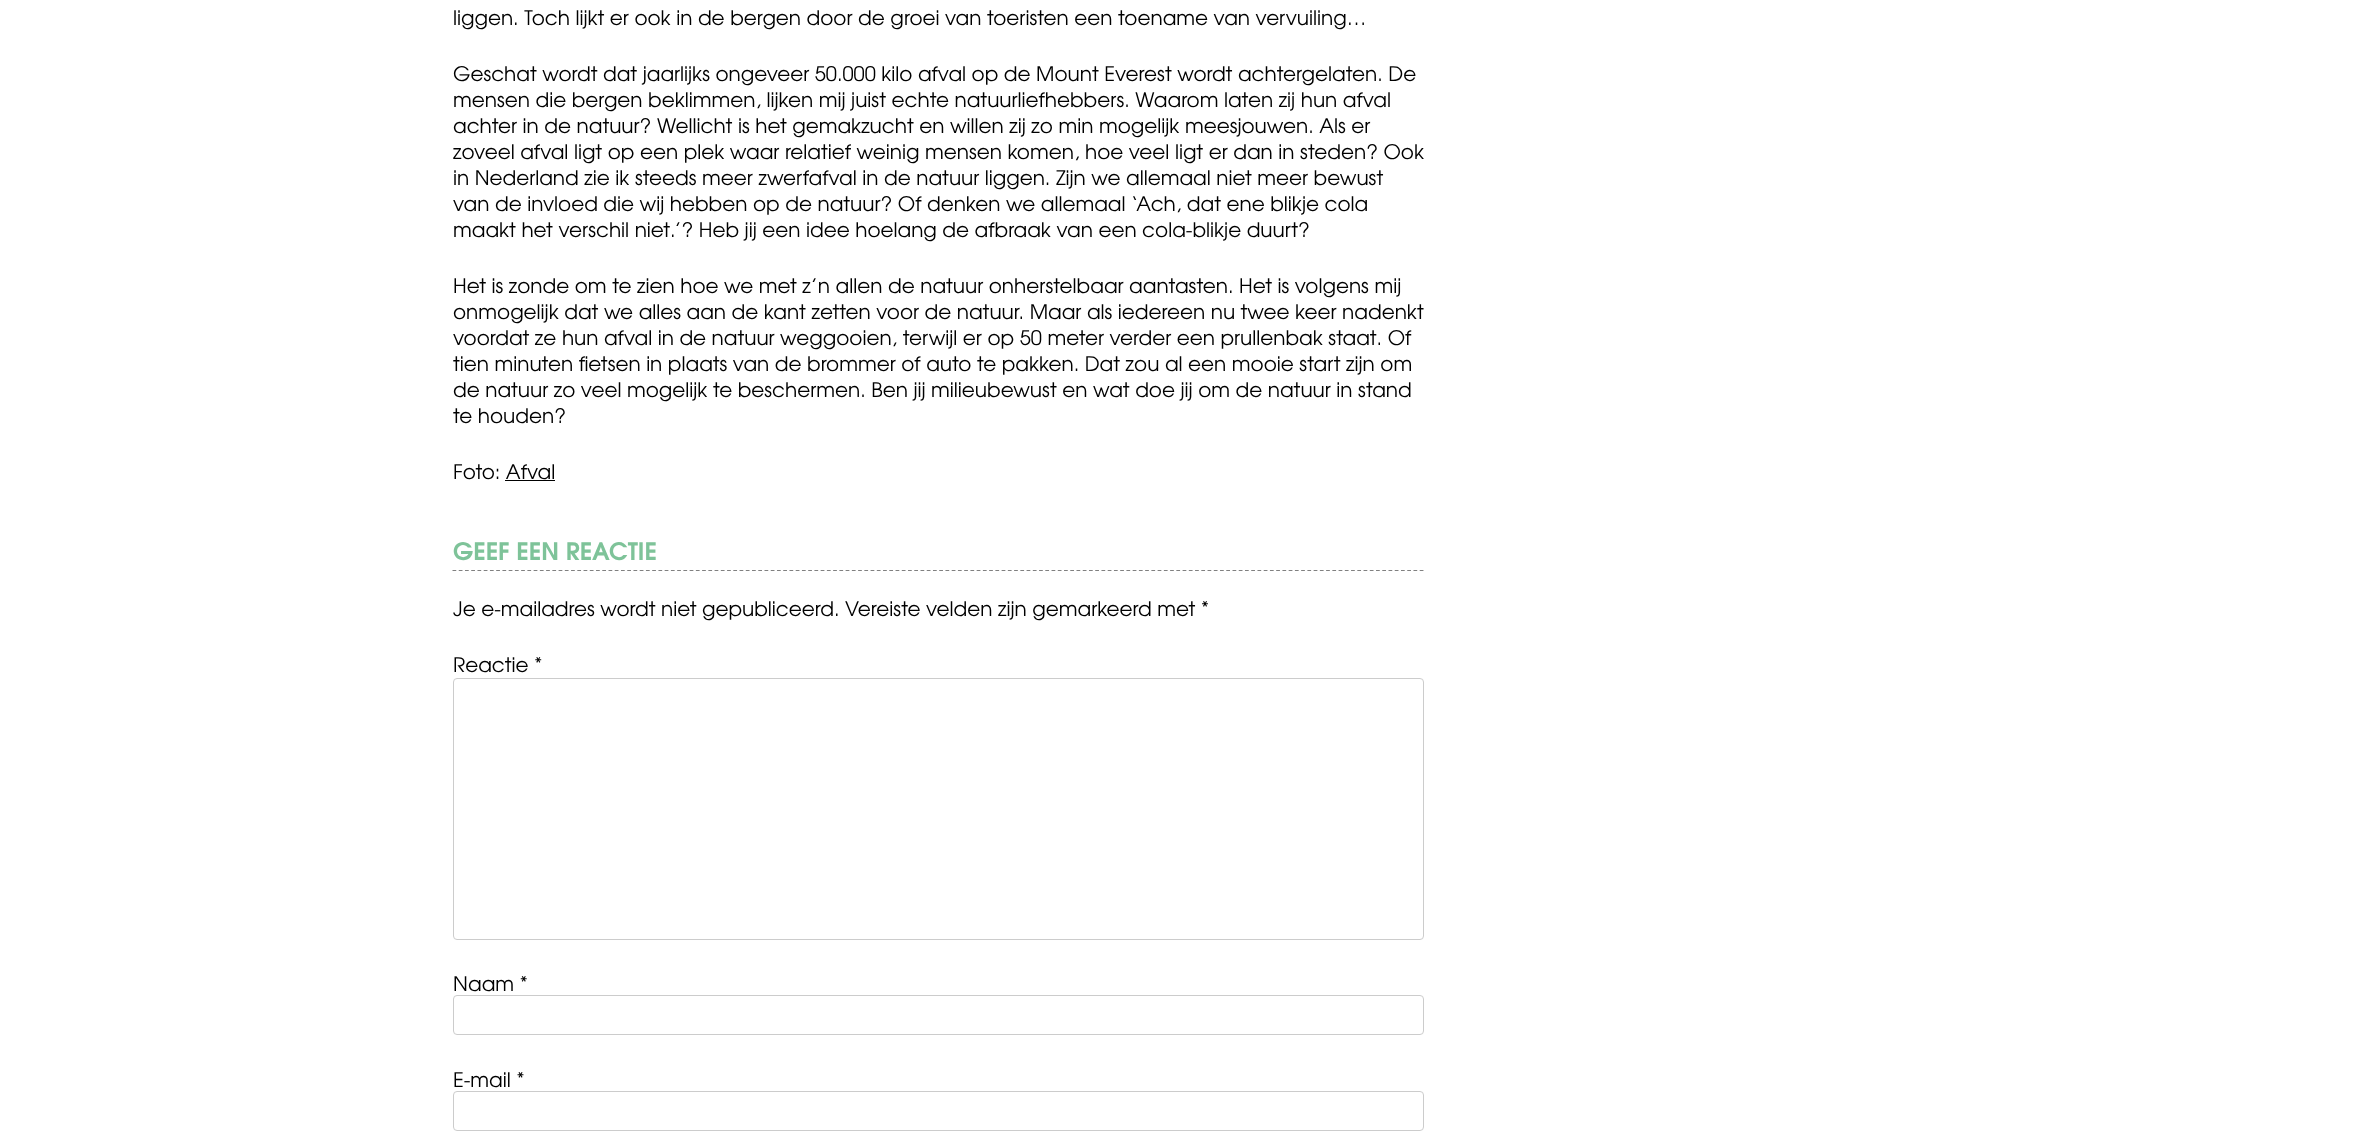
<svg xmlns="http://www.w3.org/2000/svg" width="2355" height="1146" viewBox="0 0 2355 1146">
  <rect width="100%" height="100%" fill="rgb(255,255,255)"/>
  <g font-family="TeX Gyre Adventor" font-size="20" fill="rgb(0,0,0)">
    <text x="453" y="25">liggen. Toch lijkt er ook in de bergen door de groei van toeristen een toename van vervuiling…</text>
    <text>
      <tspan x="453" y="81">Geschat wordt dat jaarlijks ongeveer 50.000 kilo afval op de Mount Everest wordt achtergelaten. De</tspan>
      <tspan x="453" y="107">mensen die bergen beklimmen, lijken mij juist echte natuurliefhebbers. Waarom laten zij hun afval</tspan>
      <tspan x="453" y="133">achter in de natuur? Wellicht is het gemakzucht en willen zij zo min mogelijk meesjouwen. Als er</tspan>
      <tspan x="453" y="159">zoveel afval ligt op een plek waar relatief weinig mensen komen, hoe veel ligt er dan in steden? Ook</tspan>
      <tspan x="453" y="185">in Nederland zie ik steeds meer zwerfafval in de natuur liggen. Zijn we allemaal niet meer bewust</tspan>
      <tspan x="453" y="211">van de invloed die wij hebben op de natuur? Of denken we allemaal ‘Ach, dat ene blikje cola</tspan>
      <tspan x="453" y="237">maakt het verschil niet.’? Heb jij een idee hoelang de afbraak van een cola-blikje duurt?</tspan>
    </text>
    <text>
      <tspan x="453" y="293">Het is zonde om te zien hoe we met z’n allen de natuur onherstelbaar aantasten. Het is volgens mij</tspan>
      <tspan x="453" y="319">onmogelijk dat we alles aan de kant zetten voor de natuur. Maar als iedereen nu twee keer nadenkt</tspan>
      <tspan x="453" y="345">voordat ze hun afval in de natuur weggooien, terwijl er op 50 meter verder een prullenbak staat. Of</tspan>
      <tspan x="453" y="371">tien minuten fietsen in plaats van de brommer of auto te pakken. Dat zou al een mooie start zijn om</tspan>
      <tspan x="453" y="397">de natuur zo veel mogelijk te beschermen. Ben jij milieubewust en wat doe jij om de natuur in stand</tspan>
      <tspan x="453" y="423">te houden?</tspan>
    </text>
    <text x="453" y="479">Foto: Afval</text>
  </g>
  <rect x="505" y="480" width="50" height="1" fill="rgb(0,0,0)"/>
  <path d="M452.5 570.5H1424" fill="none" stroke="rgb(128,128,128)" stroke-width="1.2" stroke-dasharray="3.75 2.49"/>
  <text x="453" y="560" font-family="TeX Gyre Adventor" font-size="24" font-weight="bold" fill="rgb(126,195,153)">GEEF EEN REACTIE</text>
  <g font-family="TeX Gyre Adventor" font-size="20" fill="rgb(0,0,0)">
    <text x="453" y="616">Je e-mailadres wordt niet gepubliceerd. Vereiste velden zijn gemarkeerd met *</text>
    <text x="453" y="672">Reactie *</text>
  </g>
  <rect x="453.5" y="678.5" width="970" height="261" rx="3.5" fill="none" stroke="rgb(204,204,204)"/>
  <text x="453" y="991" font-family="TeX Gyre Adventor" font-size="20" fill="rgb(0,0,0)">Naam *</text>
  <rect x="453.5" y="995.5" width="970" height="39" rx="3.5" fill="none" stroke="rgb(204,204,204)"/>
  <text x="453" y="1087" font-family="TeX Gyre Adventor" font-size="20" fill="rgb(0,0,0)">E-mail *</text>
  <rect x="453.5" y="1091.5" width="970" height="39" rx="3.5" fill="none" stroke="rgb(204,204,204)"/>
</svg>
